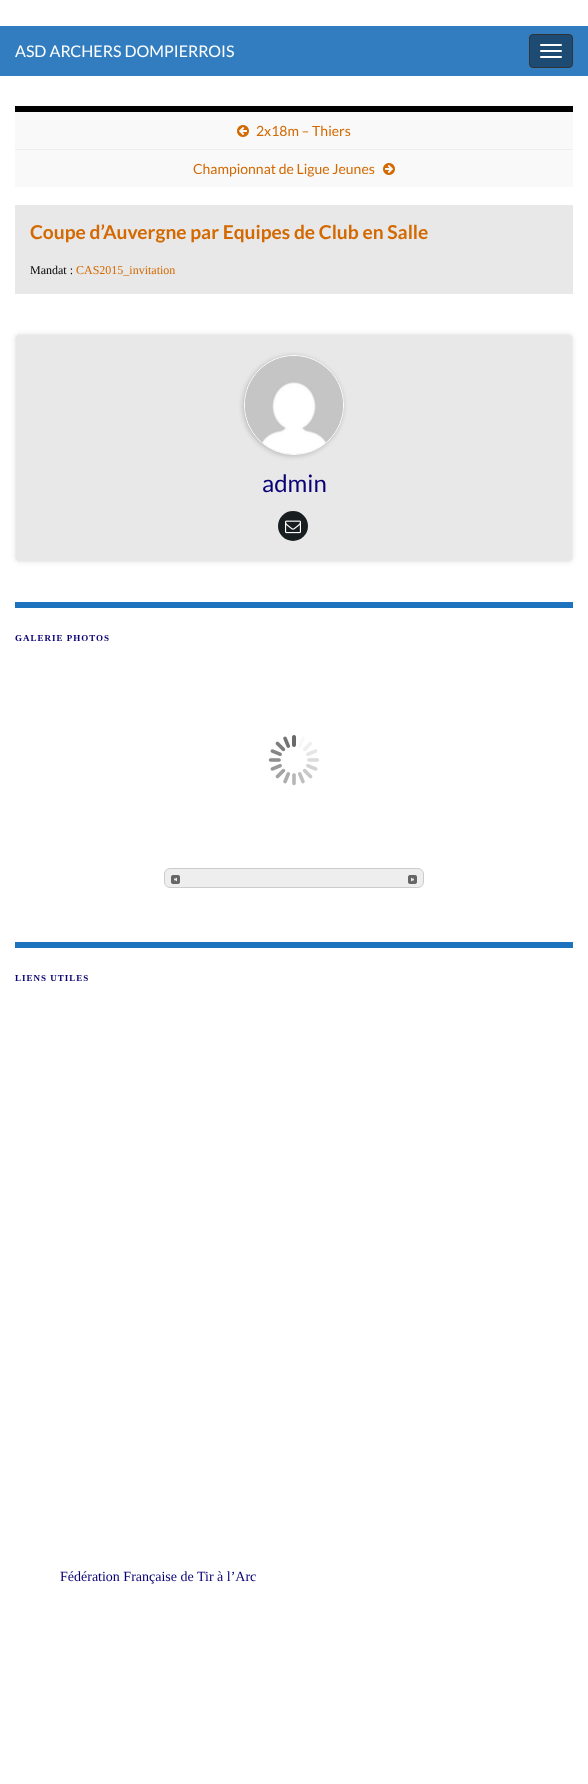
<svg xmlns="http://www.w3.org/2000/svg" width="588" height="1784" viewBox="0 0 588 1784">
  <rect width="100%" height="100%" fill="rgb(255,255,255)"/>
  <rect x="0" y="26" width="588" height="50" fill="rgb(49,125,191)"/>
  <text x="15" y="57" font-family="Lato" font-size="16" fill="rgb(255,255,255)">ASD ARCHERS DOMPIERROIS</text>
  <rect x="529.5" y="34.5" width="43" height="33" rx="3.5" fill="rgb(29,75,115)" stroke="rgb(51,51,51)"/>
  <rect x="540" y="44" width="22" height="2" rx="1" fill="rgb(255,255,255)"/>
  <rect x="540" y="50" width="22" height="2" rx="1" fill="rgb(255,255,255)"/>
  <rect x="540" y="56" width="22" height="2" rx="1" fill="rgb(255,255,255)"/>
  <rect x="15" y="112" width="558" height="75" fill="rgb(249,249,249)"/>
  <rect x="15" y="106" width="558" height="6" fill="rgb(0,0,0)"/>
  <image x="237" y="125" width="12" height="12" href="pic1.png"/>
  <text x="256" y="136" font-family="Lato" font-size="14" fill="rgb(211,105,0)">2x18m – Thiers</text>
  <rect x="15" y="149" width="558" height="1" fill="rgb(238,238,238)"/>
  <text x="193" y="174" font-family="Lato" font-size="14" fill="rgb(211,105,0)">Championnat de Ligue Jeunes</text>
  <image x="383" y="163" width="12" height="12" href="pic2.png"/>
  <rect x="15" y="205" width="558" height="89" fill="rgb(232,232,232)"/>
  <text x="30" y="239" font-family="Lato" font-size="19.2" font-weight="bold" fill="rgb(211,105,0)">Coupe d’Auvergne par Equipes de Club en Salle</text>
  <text x="30" y="274" font-family="Liberation Serif" font-size="12" fill="rgb(0,0,0)">Mandat :</text>
  <text x="76" y="274" font-family="Liberation Serif" font-size="12" fill="rgb(211,105,0)">CAS2015_invitation</text>
  <rect x="15" y="334" width="558" height="228" rx="5" fill="rgba(0,0,0,0.1)" filter="blur(2.5px)"/>
  <rect x="15.5" y="334.5" width="557" height="227" rx="4.5" fill="rgb(232,232,232)" stroke="rgb(235,237,240)"/>
  <rect x="243" y="356" width="100" height="100" rx="50" fill="rgba(0,0,0,0.2)" filter="blur(2.5px)"/>
  <circle cx="294" cy="405" r="49.5" fill="none" stroke="rgb(255,255,255)"/>
  <image x="245" y="356" width="98" height="98" href="pic3.png"/>
  <text x="262" y="492" font-family="Lato" font-size="24" fill="rgb(9,0,117)">admin</text>
  <circle cx="293" cy="526" r="15" fill="rgb(24,30,31)"/>
  <image x="285" y="520" width="16" height="14" href="pic4.png"/>
  <rect x="15" y="602" width="558" height="6" fill="rgb(30,115,190)"/>
  <text x="15" y="641" font-family="Liberation Serif" font-size="9" font-weight="bold" letter-spacing="1" fill="rgb(9,0,117)">GALERIE PHOTOS</text>
  <image x="268" y="735" width="51" height="51" href="pic5.png"/>
  <rect x="164.5" y="868.5" width="259" height="19" rx="5.5" fill="rgb(238,238,238)" stroke="rgb(204,204,204)"/>
  <image x="171" y="875" width="9" height="9" href="pic6.png"/>
  <image x="408" y="875" width="9" height="9" href="pic7.png"/>
  <rect x="15" y="942" width="558" height="6" fill="rgb(30,115,190)"/>
  <text x="15" y="981" font-family="Liberation Serif" font-size="9" font-weight="bold" letter-spacing="1" fill="rgb(9,0,117)">LIENS UTILES</text>
  <text x="60" y="1581" font-family="Liberation Serif" font-size="14" fill="rgb(9,0,117)">Fédération Française de Tir à l’Arc</text>
</svg>
